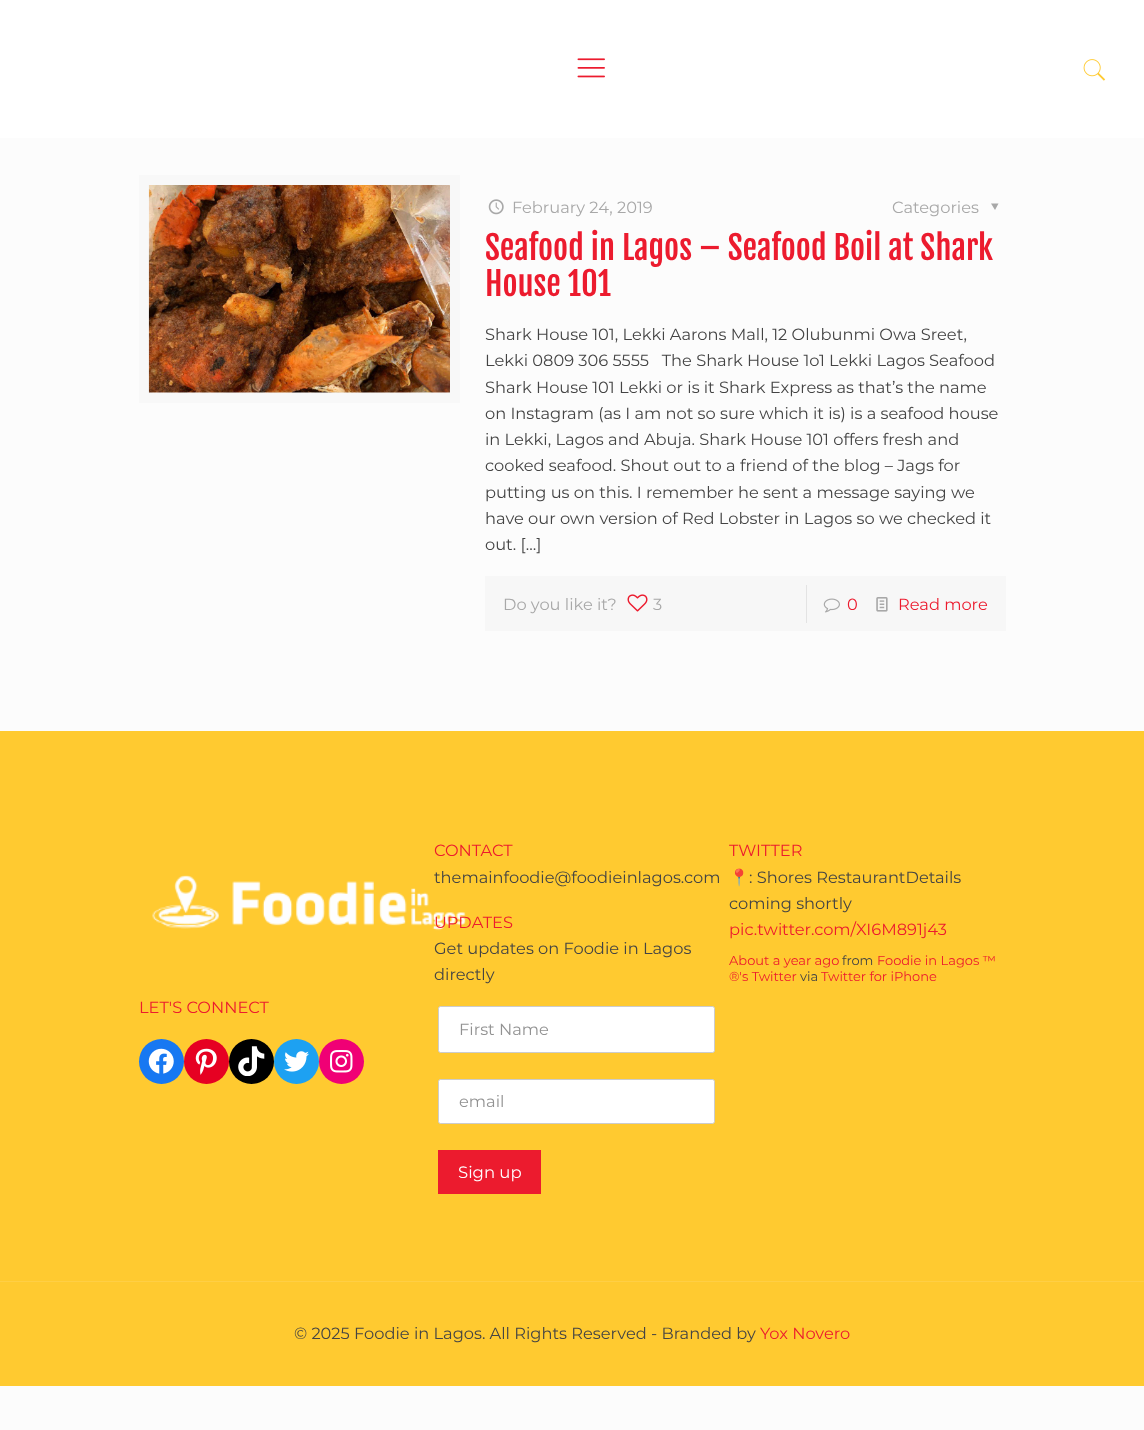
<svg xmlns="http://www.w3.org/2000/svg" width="1144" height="1430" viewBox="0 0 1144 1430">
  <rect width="100%" height="100%" fill="rgb(252,252,252)"/>
  <rect x="0" y="0" width="1144" height="138" fill="rgb(255,255,255)"/>
  <image x="577" y="58" width="28" height="20" href="pic1.png"/>
  <image x="1083" y="59" width="23" height="22" href="pic2.png"/>
  <rect x="144" y="180" width="311" height="218" fill="none" stroke="rgb(248,248,248)" stroke-width="10"/>
  <image x="148" y="185" width="302" height="208" href="pic3.png"/>
  <image x="488" y="199" width="16" height="16" href="pic4.png"/>
  <g font-family="Montserrat" font-size="16.25" fill="rgb(168,168,168)">
    <text x="512" y="213">February 24, 2019</text>
    <text x="892" y="213">Categories</text>
  </g>
  <path d="M998.5 203.5L995 210L991 203.5Z" fill="rgb(168,168,168)"/>
  <g font-family="Fjalla One" font-size="32.5" fill="rgb(236,27,46)">
    <text>
      <tspan x="485" y="260">Seafood in Lagos – Seafood Boil at Shark</tspan>
      <tspan x="485" y="296">House 101</tspan>
    </text>
  </g>
  <g font-family="Montserrat" font-size="16.25" fill="rgb(68,68,68)">
    <text xml:space="preserve"><tspan x="485" y="340">Shark House 101, Lekki Aarons Mall, 12 Olubunmi Owa Sreet,</tspan><tspan x="485" y="366">Lekki 0809 306 5555   The Shark House 1o1 Lekki Lagos Seafood</tspan><tspan x="485" y="393">Shark House 101 Lekki or is it Shark Express as that’s the name</tspan><tspan x="485" y="419">on Instagram (as I am not so sure which it is) is a seafood house</tspan><tspan x="485" y="445">in Lekki, Lagos and Abuja. Shark House 101 offers fresh and</tspan><tspan x="485" y="471">cooked seafood. Shout out to a friend of the blog – Jags for</tspan><tspan x="485" y="498">putting us on this. I remember he sent a message saying we</tspan><tspan x="485" y="524">have our own version of Red Lobster in Lagos so we checked it</tspan><tspan x="485" y="550">out. […]</tspan></text>
  </g>
  <rect x="485" y="576" width="521" height="55" fill="rgb(247,247,247)"/>
  <text x="503" y="610" font-family="Montserrat" font-size="16.25" fill="rgb(168,168,168)">Do you like it?</text>
  <image x="627" y="594" width="21" height="18" href="pic5.png"/>
  <text x="653" y="610" font-family="Montserrat" font-size="16.25" fill="rgb(168,168,168)">3</text>
  <rect x="806" y="585" width="1" height="38" fill="rgb(227,227,227)"/>
  <image x="823" y="598" width="17" height="15" href="pic6.png"/>
  <text x="847" y="610" font-family="Montserrat" font-size="16.25" fill="rgb(236,27,46)">0</text>
  <image x="876" y="597" width="12" height="15" href="pic7.png"/>
  <text x="898" y="610" font-family="Montserrat" font-size="16.25" fill="rgb(236,27,46)">Read more</text>
  <rect x="0" y="731" width="1144" height="655" fill="rgb(255,202,48)"/>
  <text x="434" y="856" font-family="Montserrat" font-size="16.25" fill="rgb(236,27,46)">CONTACT</text>
  <image x="152" y="875" width="315" height="56" href="pic8.png"/>
  <text x="434" y="883" font-family="Montserrat" font-size="16.25" fill="rgb(68,68,68)">themainfoodie@foodieinlagos.com</text>
  <text x="434" y="928" font-family="Montserrat" font-size="16.25" fill="rgb(236,27,46)">UPDATES</text>
  <g font-family="Montserrat" font-size="16.25" fill="rgb(68,68,68)">
    <text>
      <tspan x="434" y="954">Get updates on Foodie in Lagos</tspan>
      <tspan x="434" y="980">directly</tspan>
    </text>
  </g>
  <rect x="438.5" y="1006.5" width="276" height="46" rx="2" fill="rgb(255,255,255)" stroke="rgb(204,204,204)"/>
  <text x="459" y="1035" font-family="Montserrat" font-size="16.25" fill="rgb(146,146,146)">First Name</text>
  <rect x="438.5" y="1079.5" width="276" height="44" rx="2" fill="rgb(255,255,255)" stroke="rgb(204,204,204)"/>
  <text x="459" y="1107" font-family="Montserrat" font-size="16.25" fill="rgb(146,146,146)">email</text>
  <rect x="438" y="1150" width="103" height="44" fill="rgb(236,27,46)"/>
  <text x="458" y="1178" font-family="Montserrat" font-size="16.5" fill="rgb(255,255,255)">Sign up</text>
  <text x="729" y="856" font-family="Montserrat" font-size="16.25" fill="rgb(236,27,46)">TWITTER</text>
  <text x="729" y="883" font-family="Noto Color Emoji" font-size="16.25" fill="rgb(68,68,68)">📍</text>
  <g font-family="Montserrat" font-size="16.25" fill="rgb(68,68,68)">
    <text x="749" y="883">: Shores RestaurantDetails</text>
    <text x="729" y="909">coming shortly</text>
  </g>
  <text x="729" y="935" font-family="Montserrat" font-size="16.25" fill="rgb(236,27,46)">pic.twitter.com/XI6M891j43</text>
  <text x="729" y="965" font-family="Montserrat" font-size="13" fill="rgb(236,27,46)">About a year ago</text>
  <text x="842" y="965" font-family="Montserrat" font-size="13" fill="rgb(68,68,68)">from</text>
  <g font-family="Montserrat" font-size="13" fill="rgb(236,27,46)">
    <text x="877" y="965">Foodie in Lagos ™</text>
    <text x="729" y="981">®'s Twitter</text>
  </g>
  <text x="800" y="981" font-family="Montserrat" font-size="13" fill="rgb(68,68,68)">via</text>
  <text x="821" y="981" font-family="Montserrat" font-size="13" fill="rgb(236,27,46)">Twitter for iPhone</text>
  <text x="139" y="1013" font-family="Montserrat" font-size="16.25" fill="rgb(236,27,46)">LET'S CONNECT</text>
  <circle cx="161.5" cy="1061.5" r="22.5" fill="rgb(23,120,242)"/>
  <image x="148" y="1048" width="26" height="26" href="pic9.png"/>
  <circle cx="206.5" cy="1061.5" r="22.5" fill="rgb(230,1,34)"/>
  <image x="195" y="1048" width="22" height="27" href="pic10.png"/>
  <circle cx="251.5" cy="1061.5" r="22.5" fill="rgb(0,0,0)"/>
  <image x="238" y="1046" width="27" height="30" href="pic11.png"/>
  <circle cx="296.5" cy="1061.5" r="22.5" fill="rgb(29,161,242)"/>
  <image x="284" y="1051" width="25" height="21" href="pic12.png"/>
  <circle cx="341.5" cy="1061.5" r="22.5" fill="rgb(240,0,117)"/>
  <image x="330" y="1050" width="23" height="23" href="pic13.png"/>
  <rect x="0" y="1281" width="1144" height="1" fill="rgb(255,207,69)"/>
  <text x="294" y="1339" font-family="Montserrat" font-size="16.25" fill="rgb(68,68,68)">© 2025 Foodie in Lagos. All Rights Reserved - Branded by</text>
  <text x="760" y="1339" font-family="Montserrat" font-size="16.25" fill="rgb(236,27,46)">Yox Novero</text>
</svg>
